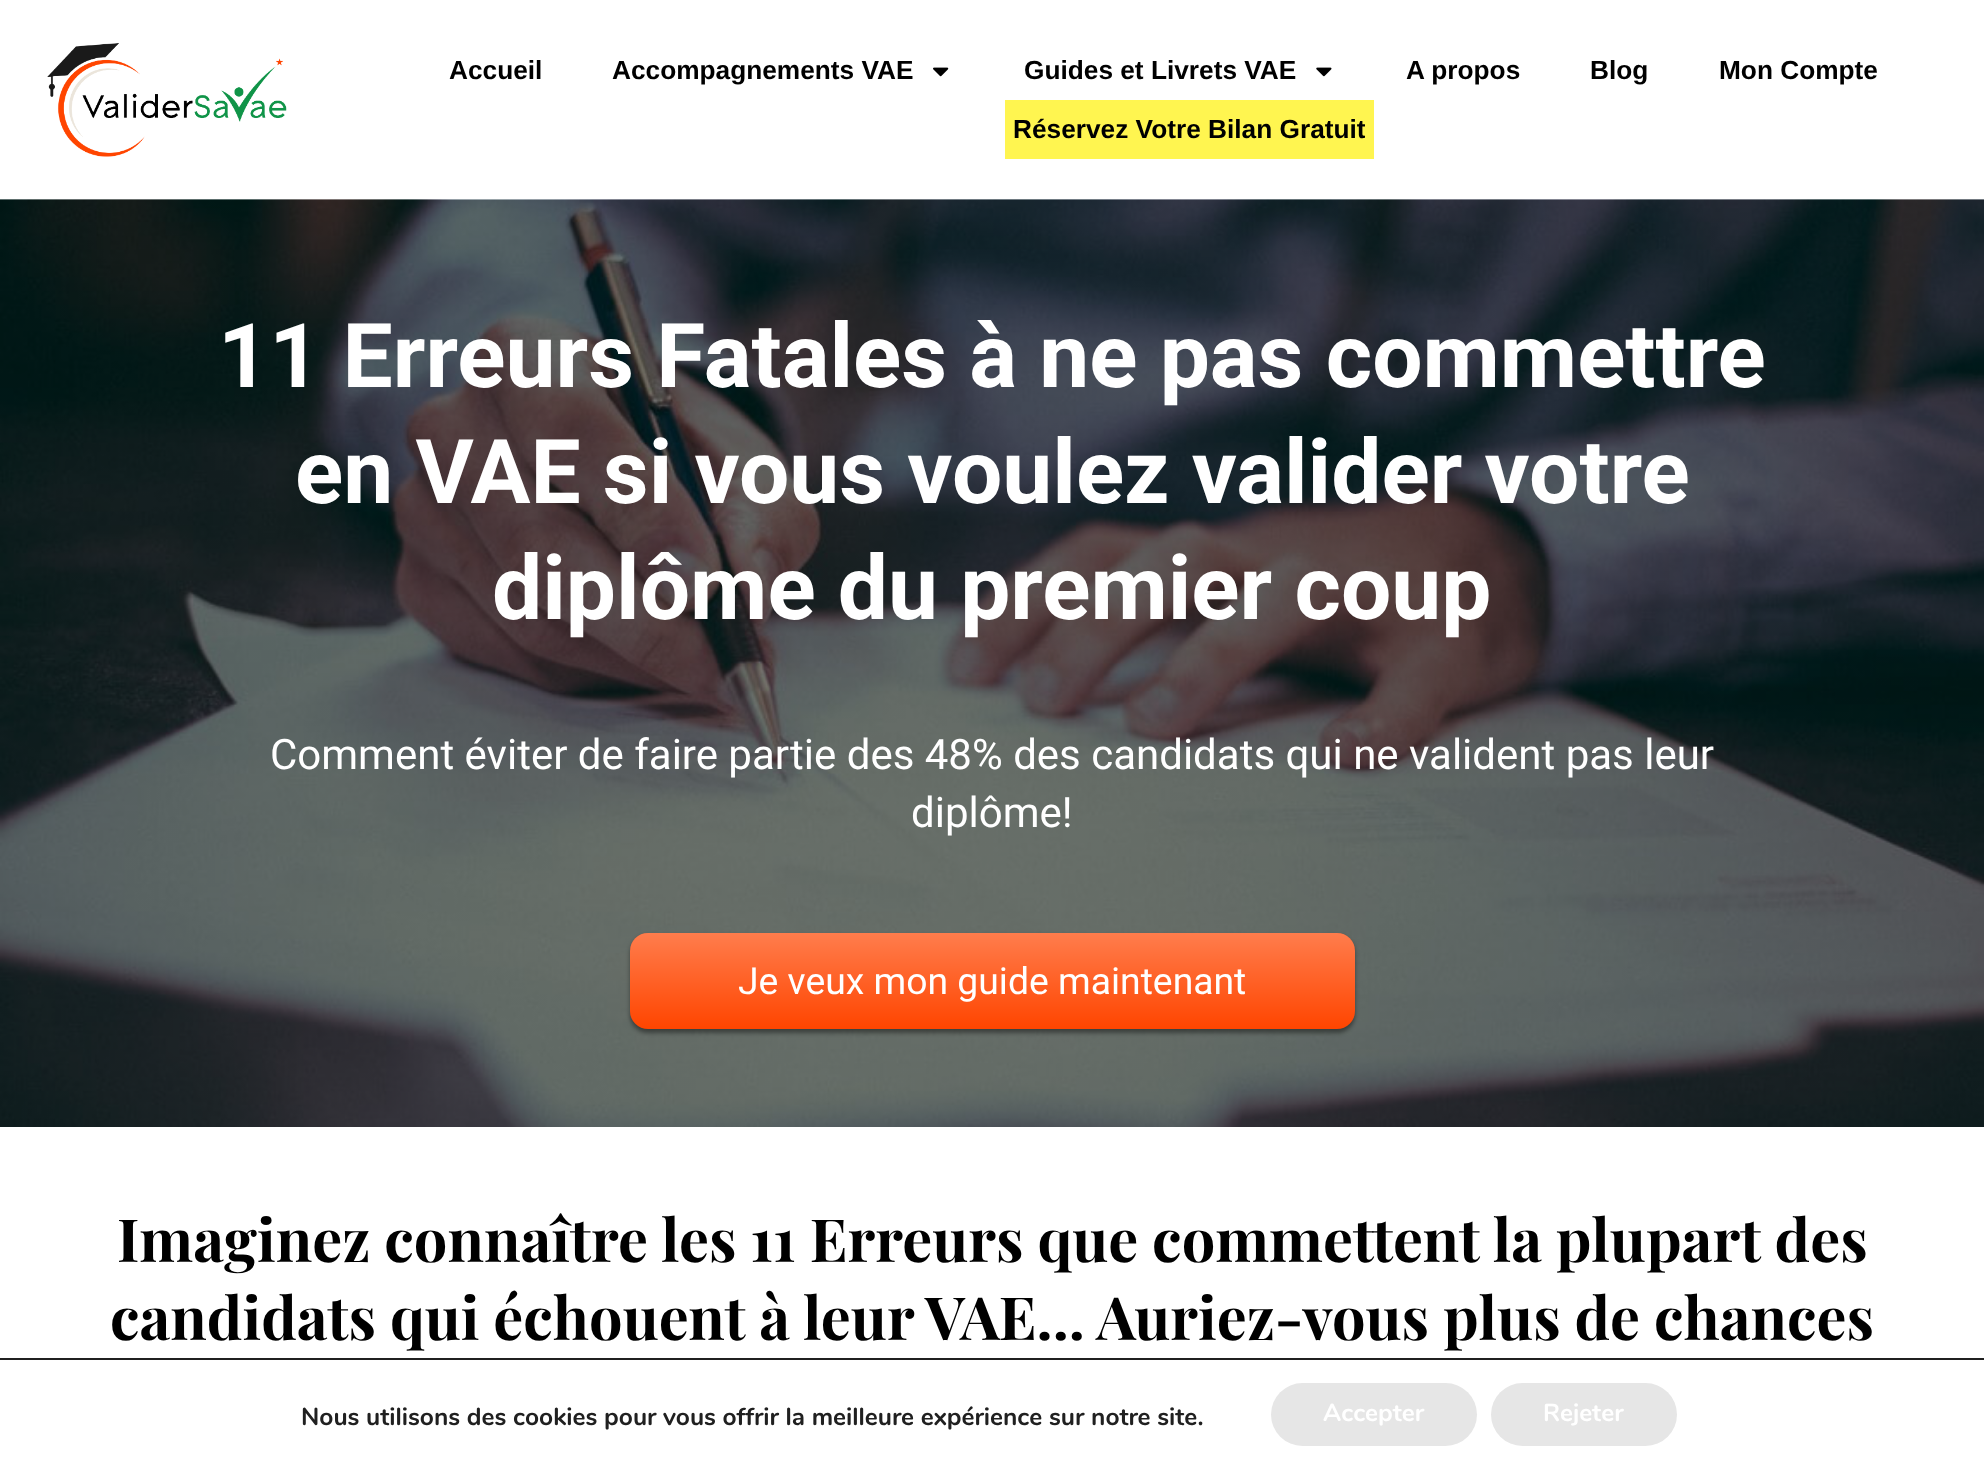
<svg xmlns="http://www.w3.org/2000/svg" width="1984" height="1468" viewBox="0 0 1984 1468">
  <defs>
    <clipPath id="clip1"><rect x="1013" y="103" width="352" height="53"/></clipPath>
    <linearGradient id="g1" gradientUnits="userSpaceOnUse" x1="992" y1="933" x2="992" y2="1029"><stop offset="0" stop-color="rgb(255,255,255)" stop-opacity="0.3"/><stop offset="1" stop-color="rgb(255,255,255)" stop-opacity="0"/></linearGradient>
  </defs>
  <rect width="100%" height="100%" fill="rgb(255,255,255)"/>
  <image x="47" y="43" width="240" height="114" href="pic1.png"/>
  <g font-family="Liberation Sans" font-size="26.25" font-weight="bold" fill="rgb(0,0,0)">
    <text x="449" y="79">Accueil</text>
    <text x="612" y="79">Accompagnements VAE</text>
  </g>
  <image x="933" y="67" width="16" height="10" href="pic2.png"/>
  <text x="1024" y="79" font-family="Liberation Sans" font-size="26.25" font-weight="bold" fill="rgb(0,0,0)">Guides et Livrets VAE</text>
  <image x="1316" y="67" width="16" height="10" href="pic3.png"/>
  <g font-family="Liberation Sans" font-size="26.25" font-weight="bold" fill="rgb(0,0,0)">
    <text x="1406" y="79">A propos</text>
    <text x="1590" y="79">Blog</text>
    <text x="1719" y="79">Mon Compte</text>
  </g>
  <rect x="1005" y="100" width="369" height="59" fill="rgb(255,245,80)"/>
  <g clip-path="url(#clip1)">
    <text x="1013" y="138" font-family="Liberation Sans" font-size="26.25" font-weight="bold" fill="rgb(0,0,0)">Réservez Votre Bilan Gratuit</text>
  </g>
  <image x="0" y="199" width="1984" height="928" href="pic4.png"/>
  <g font-family="Roboto" font-size="89.25" font-weight="bold" fill="rgb(255,255,255)">
    <text x="218" y="387">11 Erreurs Fatales à ne pas commettre</text>
    <text x="295" y="503">en VAE si vous voulez valider votre</text>
    <text x="492" y="619">diplôme du premier coup</text>
  </g>
  <g font-family="Roboto" font-size="42" fill="rgb(255,255,255)">
    <text x="270" y="769">Comment éviter de faire partie des 48% des candidats qui ne valident pas leur</text>
    <text x="911" y="827">diplôme!</text>
  </g>
  <rect x="630" y="936" width="725" height="97" rx="18" fill="rgba(0,0,0,0.4)" filter="blur(2px)"/>
  <rect x="630" y="933" width="725" height="96" rx="18" fill="rgb(255,69,0)"/>
  <rect x="630" y="933" width="725" height="96" rx="18" fill="url(#g1)"/>
  <text x="738" y="994" font-family="Roboto" font-size="37.3" fill="rgb(255,255,255)">Je veux mon guide maintenant</text>
  <g font-family="Playfair Display" font-size="59.5" font-weight="bold" fill="rgb(0,0,0)">
    <text x="117" y="1262">Imaginez connaître les 11 Erreurs que commettent la plupart des</text>
    <text x="110" y="1340">candidats qui échouent à leur VAE... Auriez-vous plus de chances</text>
  </g>
  <rect x="0" y="1358" width="1984" height="2" fill="rgb(32,32,32)"/>
  <text x="301" y="1425" font-family="Nunito" font-size="24.5" font-weight="bold" fill="rgb(32,32,32)">Nous utilisons des cookies pour vous offrir la meilleure expérience sur notre site.</text>
  <rect x="1271" y="1383" width="206" height="63" rx="31.5" fill="rgb(230,230,230)"/>
  <text x="1323" y="1421" font-family="Nunito" font-size="24.5" font-weight="bold" fill="rgb(255,255,255)">Accepter</text>
  <rect x="1491" y="1383" width="186" height="63" rx="31.5" fill="rgb(230,230,230)"/>
  <text x="1543" y="1421" font-family="Nunito" font-size="24.5" font-weight="bold" fill="rgb(255,255,255)">Rejeter</text>
</svg>
